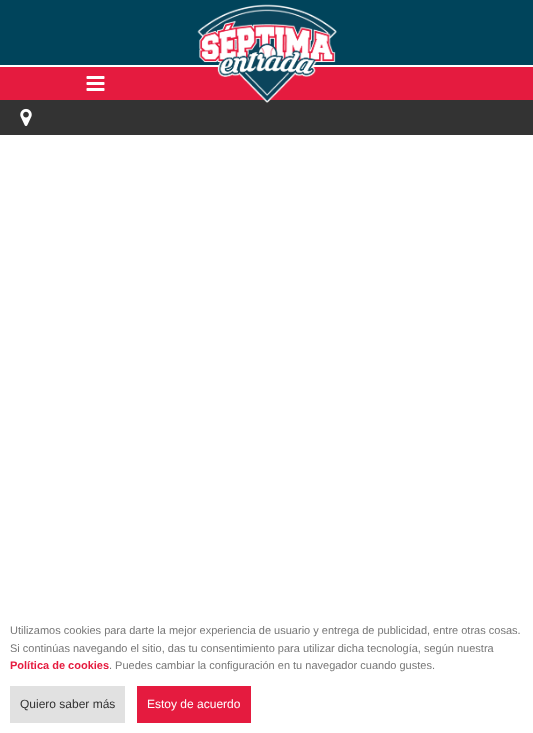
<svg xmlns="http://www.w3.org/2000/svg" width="533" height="733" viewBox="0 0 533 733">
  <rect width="100%" height="100%" fill="rgb(255,255,255)"/>
  <rect x="0" y="0" width="533" height="65" fill="rgb(0,68,91)"/>
  <rect x="0" y="67" width="533" height="33" fill="rgb(229,27,63)"/>
  <rect x="0" y="100" width="533" height="35" fill="rgb(51,51,51)"/>
  <image x="197" y="4" width="140" height="99" href="pic1.png"/>
  <image x="86" y="76" width="19" height="15" href="pic2.png"/>
  <image x="20" y="108" width="12" height="18" href="pic3.png"/>
  <g font-family="Liberation Sans" font-size="11" fill="rgb(119,119,119)">
    <text>
      <tspan x="10" y="634">Utilizamos cookies para darte la mejor experiencia de usuario y entrega de publicidad, entre otras cosas.</tspan>
      <tspan x="10" y="652">Si continúas navegando el sitio, das tu consentimiento para utilizar dicha tecnología, según nuestra</tspan>
    </text>
  </g>
  <text x="10" y="669" font-family="Liberation Sans" font-size="11" font-weight="bold" fill="rgb(229,27,63)">Política de cookies</text>
  <text x="109" y="669" font-family="Liberation Sans" font-size="11" fill="rgb(119,119,119)">. Puedes cambiar la configuración en tu navegador cuando gustes.</text>
  <rect x="10" y="686" width="115" height="37" fill="rgb(225,225,225)"/>
  <text x="20" y="708" font-family="Liberation Sans" font-size="12" fill="rgb(51,51,51)">Quiero saber más</text>
  <rect x="137" y="686" width="114" height="37" fill="rgb(229,27,63)"/>
  <text x="147" y="708" font-family="Liberation Sans" font-size="12" fill="rgb(255,255,255)">Estoy de acuerdo</text>
</svg>
